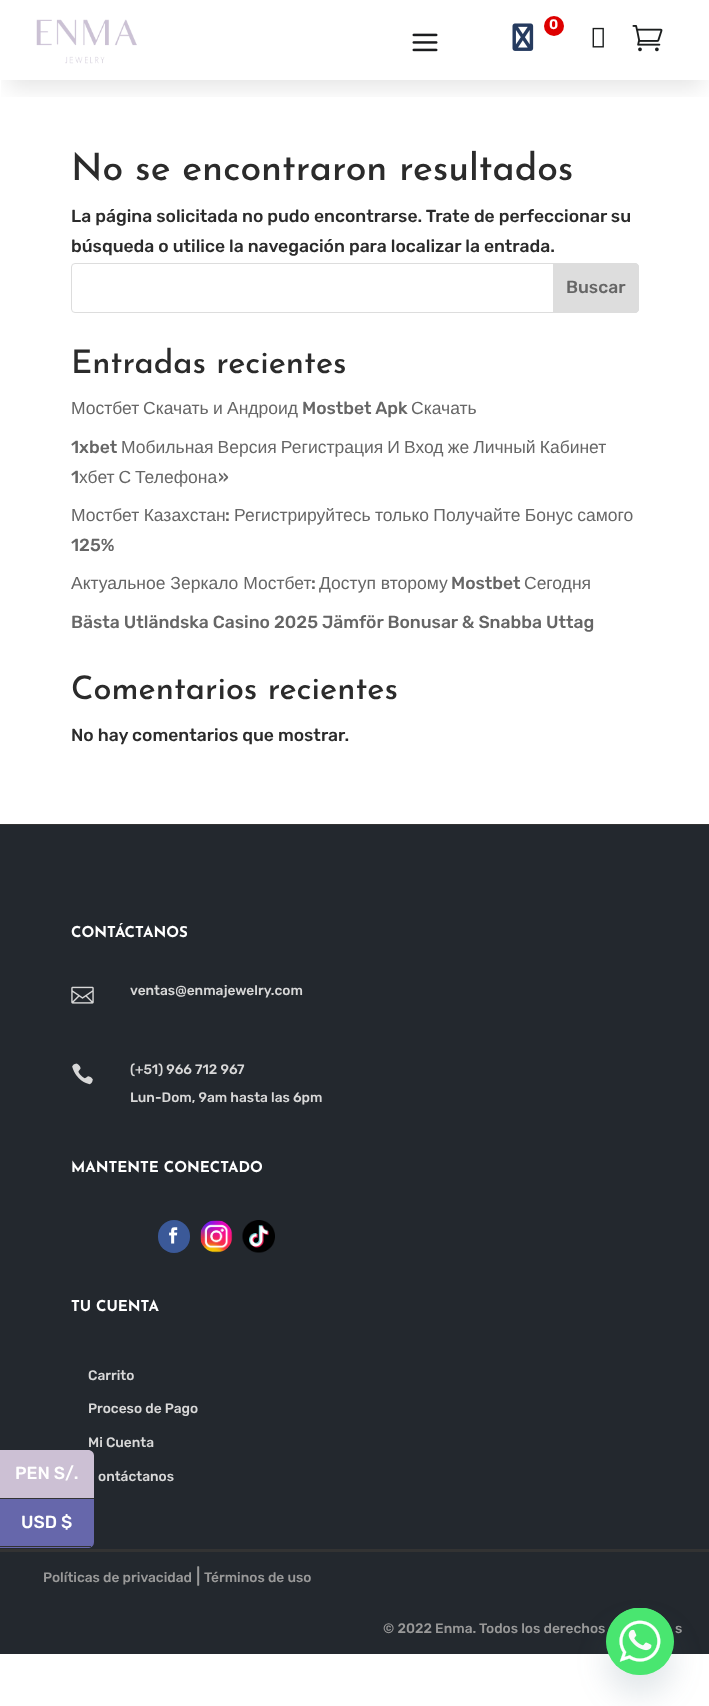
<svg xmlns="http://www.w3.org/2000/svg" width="709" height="1706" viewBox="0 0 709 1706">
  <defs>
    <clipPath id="clip1"><rect x="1" y="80" width="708" height="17"/></clipPath>
  </defs>
  <rect width="100%" height="100%" fill="rgb(255,255,255)"/>
  <g clip-path="url(#clip1)">
    <rect x="8" y="23" width="695" height="65" fill="rgba(0,0,0,0.1)" filter="blur(11px)"/>
  </g>
  <image x="36" y="19" width="101" height="45" href="pic1.png"/>
  <image x="412" y="33" width="26" height="19" href="pic2.png"/>
  <image x="512" y="23" width="22" height="28" href="pic3.png"/>
  <circle cx="554" cy="26" r="10" fill="rgb(222,0,0)"/>
  <text x="549" y="29" font-family="Rubik" font-size="13.75" font-weight="600" fill="rgb(255,255,255)">0</text>
  <image x="592" y="27" width="12" height="21" href="pic4.png"/>
  <image x="632" y="25" width="31" height="27" href="pic5.png"/>
  <text x="71" y="180" font-family="Josefin Sans" font-size="37.5" font-weight="100" fill="rgb(43,43,43)">No se encontraron resultados</text>
  <g font-family="Rubik" font-size="17.5" font-weight="300" fill="rgb(43,43,43)">
    <text>
      <tspan x="71" y="222">La página solicitada no pudo encontrarse. Trate de perfeccionar su</tspan>
      <tspan x="71" y="252">búsqueda o utilice la navegación para localizar la entrada.</tspan>
    </text>
  </g>
  <rect x="71.5" y="263.5" width="567" height="49" rx="3.5" fill="none" stroke="rgb(221,221,221)"/>
  <path d="M553.5 263.5H635C637 263.5 638.5 265 638.5 267V309C638.5 311 637 312.5 635 312.5H553.5Z" fill="rgb(221,221,221)" stroke="rgb(221,221,221)"/>
  <text x="566" y="293" font-family="Rubik" font-size="17.5" font-weight="300" fill="rgb(102,102,102)">Buscar</text>
  <text x="71" y="373" font-family="Josefin Sans" font-size="32.5" font-weight="100" fill="rgb(43,43,43)">Entradas recientes</text>
  <g font-family="Liberation Sans" font-size="17.5" fill="rgb(102,102,102)">
    <text x="71" y="414">Мостбет</text>
    <text x="143" y="414">Скачать</text>
    <text x="213" y="414">и</text>
    <text x="227" y="414">Андроид</text>
  </g>
  <text x="302" y="414" font-family="Rubik" font-size="17.5" font-weight="300" fill="rgb(102,102,102)">Mostbet Apk</text>
  <text x="411" y="414" font-family="Liberation Sans" font-size="17.5" fill="rgb(102,102,102)">Скачать</text>
  <text x="71" y="453" font-family="Rubik" font-size="17.5" font-weight="300" fill="rgb(102,102,102)">1xbet</text>
  <text x="121" y="453" word-spacing="-0.75" font-family="Liberation Sans" font-size="17.5" fill="rgb(102,102,102)">Мобильная Версия Регистрация И Вход же Личный Кабинет</text>
  <text x="71" y="483" font-family="Rubik" font-size="17.5" font-weight="300" fill="rgb(102,102,102)">1</text>
  <text x="79" y="483" word-spacing="-1" font-family="Liberation Sans" font-size="17.5" fill="rgb(102,102,102)">хбет С Телефона</text>
  <text x="218" y="483" font-family="Rubik" font-size="17.5" font-weight="300" fill="rgb(102,102,102)">»</text>
  <text x="71" y="521" word-spacing="-0.5" font-family="Liberation Sans" font-size="17.5" fill="rgb(102,102,102)">Мостбет Казахстан</text>
  <text x="225" y="521" font-family="Rubik" font-size="17.5" font-weight="300" fill="rgb(102,102,102)">:</text>
  <text x="234" y="521" word-spacing="-0.5" font-family="Liberation Sans" font-size="17.5" fill="rgb(102,102,102)">Регистрируйтесь только Получайте Бонус самого</text>
  <text x="71" y="551" font-family="Rubik" font-size="17.5" font-weight="300" fill="rgb(102,102,102)">125%</text>
  <text x="71" y="589" font-family="Liberation Sans" font-size="17.5" fill="rgb(102,102,102)">Актуальное Зеркало Мостбет</text>
  <text x="311" y="589" font-family="Rubik" font-size="17.5" font-weight="300" fill="rgb(102,102,102)">:</text>
  <text x="319" y="589" font-family="Liberation Sans" font-size="17.5" fill="rgb(102,102,102)">Доступ второму</text>
  <text x="451" y="589" font-family="Rubik" font-size="17.5" font-weight="300" fill="rgb(102,102,102)">Mostbet</text>
  <text x="524" y="589" font-family="Liberation Sans" font-size="17.5" fill="rgb(102,102,102)">Сегодня</text>
  <text x="71" y="628" font-family="Rubik" font-size="17.5" font-weight="300" fill="rgb(102,102,102)">Bästa Utländska Casino 2025 Jämför Bonusar &amp; Snabba Uttag</text>
  <text x="71" y="699" font-family="Josefin Sans" font-size="32.5" font-weight="100" fill="rgb(43,43,43)">Comentarios recientes</text>
  <text x="71" y="741" font-family="Rubik" font-size="17.5" font-weight="300" fill="rgb(43,43,43)">No hay comentarios que mostrar.</text>
  <rect x="0" y="825" width="709" height="829" fill="rgb(35,40,46)"/>
  <rect x="0" y="824" width="709" height="1" fill="rgb(51,51,51)"/>
  <text x="71" y="937" font-family="'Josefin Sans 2'" font-size="15" font-weight="100" fill="rgb(255,255,255)">CONTÁCTANOS</text>
  <image x="71" y="986" width="23" height="18" href="pic6.png"/>
  <text x="130" y="995" font-family="Rubik" font-size="13.75" font-weight="300" fill="rgb(216,216,216)">ventas@enmajewelry.com</text>
  <image x="72" y="1063" width="21" height="22" href="pic7.png"/>
  <g font-family="Rubik" font-size="13.75" font-weight="300" fill="rgb(216,216,216)">
    <text x="130" y="1074">(+51) 966 712 967</text>
    <text x="130" y="1102">Lun-Dom, 9am hasta las 6pm</text>
  </g>
  <text x="71" y="1172" font-family="'Josefin Sans 2'" font-size="15" font-weight="100" fill="rgb(255,255,255)">MANTENTE CONECTADO</text>
  <rect x="158" y="1220" width="32" height="33" rx="16" fill="rgb(59,89,152)"/>
  <image x="169" y="1227" width="9" height="17" href="pic8.png"/>
  <image x="200" y="1220" width="33" height="33" href="pic9.png"/>
  <image x="242" y="1220" width="33" height="33" href="pic10.png"/>
  <text x="71" y="1311" font-family="'Josefin Sans 2'" font-size="15" font-weight="100" fill="rgb(255,255,255)">TU CUENTA</text>
  <g font-family="Rubik" font-size="13.75" font-weight="300" fill="rgb(216,216,216)">
    <text x="88" y="1380">Carrito</text>
    <text x="88" y="1413">Proceso de Pago</text>
    <text x="88" y="1447">Mi Cuenta</text>
    <text x="98" y="1481">ontáctanos</text>
  </g>
  <rect x="0" y="1549" width="709" height="3" fill="rgb(51,51,51)"/>
  <text x="43" y="1582" font-family="Rubik" font-size="13.75" font-weight="300" fill="rgb(153,153,153)">Políticas de privacidad</text>
  <text x="196" y="1582" font-family="Rubik" font-size="17.5" font-weight="300" fill="rgb(153,153,153)">|</text>
  <g font-family="Rubik" font-size="13.75" font-weight="300" fill="rgb(153,153,153)">
    <text x="204" y="1582">Términos de uso</text>
    <text x="383" y="1633">© 2022 Enma. Todos los derechos</text>
    <text x="675" y="1633">s</text>
  </g>
  <path d="M0 1450H88C91.5 1450 94 1452.5 94 1456V1499H0Z" fill="rgb(204,192,212)"/>
  <rect x="0" y="1498" width="94" height="1" fill="rgb(51,51,51)"/>
  <text x="15" y="1479" font-family="Rubik" font-size="17.5" font-weight="300" fill="rgb(255,255,255)">PEN S/.</text>
  <path d="M0 1499H94V1542C94 1545.5 91.5 1548 88 1548H0Z" fill="rgb(102,103,171)"/>
  <rect x="0" y="1546" width="91" height="1" fill="rgb(51,51,51)"/>
  <text x="21" y="1528" font-family="Rubik" font-size="17.5" font-weight="300" fill="rgb(255,255,255)">USD $</text>
  <rect x="606" y="1628" width="68" height="67" rx="33.5" fill="rgba(73,104,126,0.16)" filter="blur(15px)"/>
  <rect x="606" y="1608" width="68" height="67" rx="33.5" fill="rgb(73,230,112)"/>
  <image x="606" y="1608" width="68" height="67" href="pic11.png"/>
</svg>
